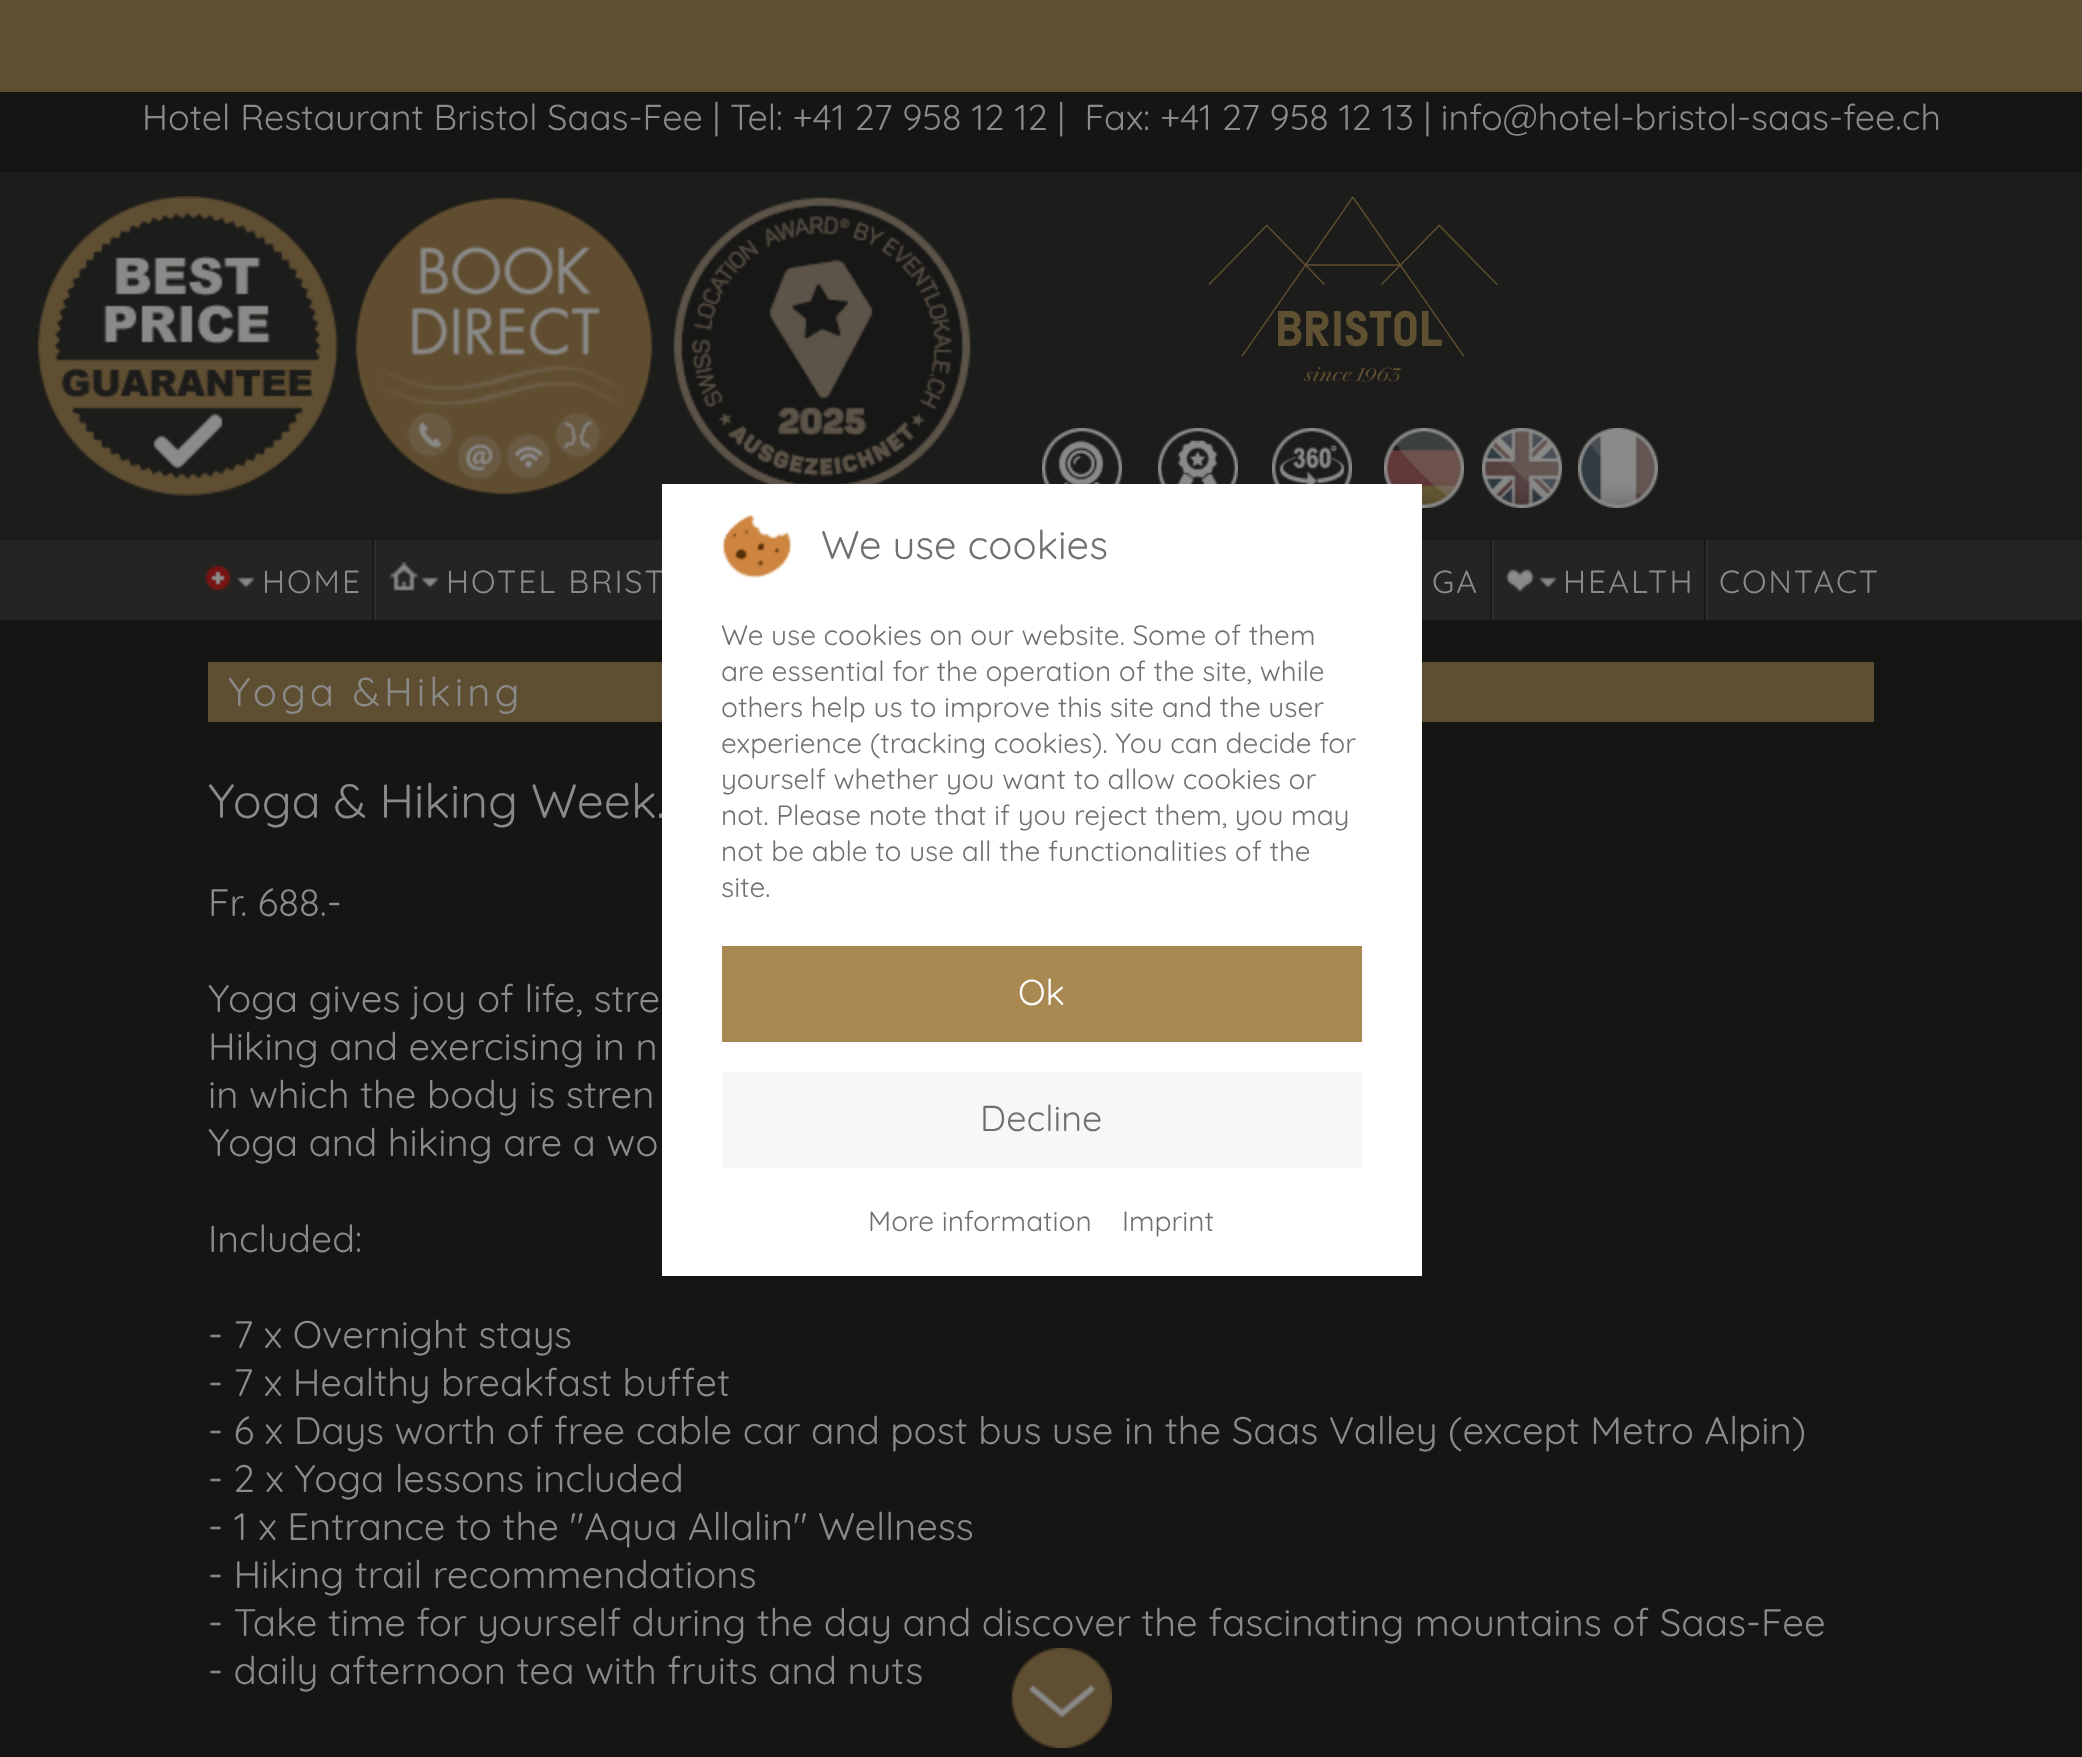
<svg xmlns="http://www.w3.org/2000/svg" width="2082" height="1757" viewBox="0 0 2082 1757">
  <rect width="100%" height="100%" fill="rgb(21,21,19)"/>
  <rect x="0" y="0" width="2082" height="92" fill="rgb(94,79,50)"/>
  <text x="142" y="130" font-family="Quicksand" font-size="36" font-weight="300" fill="rgb(138,138,137)" xml:space="preserve">Hotel Restaurant Bristol Saas-Fee | Tel: +41 27 958 12 12 |  Fax: +41 27 958 12 13 | info@hotel-bristol-saas-fee.ch</text>
  <rect x="0" y="172" width="2082" height="368" fill="rgb(28,28,26)"/>
  <image x="38" y="196" width="300" height="300" href="pic1.png"/>
  <image x="355" y="197" width="298" height="298" href="pic2.png"/>
  <image x="673" y="197" width="298" height="287" href="pic3.png"/>
  <image x="1208" y="196" width="290" height="186" href="pic4.png"/>
  <image x="1042" y="428" width="80" height="56" href="pic5.png"/>
  <image x="1158" y="428" width="80" height="56" href="pic6.png"/>
  <image x="1272" y="428" width="80" height="56" href="pic7.png"/>
  <image x="1384" y="428" width="80" height="80" href="pic8.png"/>
  <image x="1482" y="428" width="80" height="80" href="pic9.png"/>
  <image x="1578" y="428" width="80" height="80" href="pic10.png"/>
  <rect x="0" y="540" width="2082" height="80" fill="rgb(36,36,35)"/>
  <rect x="372" y="540" width="2" height="80" fill="rgb(24,25,24)"/>
  <image x="205" y="565" width="50" height="26" href="pic11.png"/>
  <text x="262" y="593" font-family="Quicksand" font-size="32" font-weight="300" letter-spacing="2" fill="rgb(138,138,137)">HOME</text>
  <rect x="374" y="540" width="2" height="80" fill="rgb(44,46,45)"/>
  <image x="389" y="562" width="50" height="29" href="pic12.png"/>
  <text x="446" y="593" font-family="Quicksand" font-size="32" font-weight="300" letter-spacing="2" fill="rgb(138,138,137)">HOTEL BRIST</text>
  <rect x="1490" y="540" width="2" height="80" fill="rgb(24,25,24)"/>
  <text x="1432" y="593" font-family="Quicksand" font-size="32" font-weight="300" letter-spacing="2" fill="rgb(138,138,137)">GA</text>
  <rect x="1704" y="540" width="2" height="80" fill="rgb(24,25,24)"/>
  <rect x="1492" y="540" width="2" height="80" fill="rgb(44,46,45)"/>
  <image x="1505" y="569" width="52" height="23" href="pic13.png"/>
  <text x="1563" y="593" font-family="Quicksand" font-size="32" font-weight="300" letter-spacing="2" fill="rgb(138,138,137)">HEALTH</text>
  <rect x="1706" y="540" width="2" height="80" fill="rgb(44,46,45)"/>
  <text x="1719" y="593" font-family="Quicksand" font-size="32" font-weight="300" letter-spacing="2" fill="rgb(138,138,137)">CONTACT</text>
  <rect x="208" y="662" width="1666" height="60" fill="rgb(94,79,50)"/>
  <text x="228" y="706" font-family="Quicksand" font-size="40" font-weight="300" letter-spacing="4" fill="rgb(138,138,137)">Yoga &amp;Hiking</text>
  <text x="208" y="818" font-family="Quicksand" font-size="48" font-weight="300" fill="rgb(138,138,137)">Yoga &amp; Hiking Week.</text>
  <g font-family="Quicksand" font-size="38.4" font-weight="300" fill="rgb(138,138,137)">
    <text x="208" y="916">Fr. 688.-</text>
    <text>
      <tspan x="208" y="1012">Yoga gives joy of life, stre</tspan>
      <tspan x="208" y="1060">Hiking and exercising in n</tspan>
      <tspan x="208" y="1108">in which the body is stren</tspan>
      <tspan x="208" y="1156">Yoga and hiking are a wo</tspan>
    </text>
  </g>
  <text x="208" y="1252" font-family="Quicksand" font-size="37.5" font-weight="300" fill="rgb(138,138,137)">Included:</text>
  <g font-family="Quicksand" font-size="38.4" font-weight="300" fill="rgb(138,138,137)">
    <text>
      <tspan x="208" y="1348">- 7 x Overnight stays</tspan>
      <tspan x="208" y="1396">- 7 x Healthy breakfast buffet</tspan>
      <tspan x="208" y="1444">- 6 x Days worth of free cable car and post bus use in the Saas Valley (except Metro Alpin)</tspan>
      <tspan x="208" y="1492">- 2 x Yoga lessons included</tspan>
      <tspan x="208" y="1540">- 1 x Entrance to the "Aqua Allalin" Wellness</tspan>
      <tspan x="208" y="1588">- Hiking trail recommendations</tspan>
      <tspan x="208" y="1636">- Take time for yourself during the day and discover the fascinating mountains of Saas-Fee</tspan>
      <tspan x="208" y="1684">- daily afternoon tea with fruits and nuts</tspan>
    </text>
  </g>
  <image x="1011" y="1648" width="101" height="100" href="pic14.png"/>
  <rect x="662" y="484" width="760" height="792" fill="rgb(255,255,255)"/>
  <image x="721" y="514" width="71" height="64" href="pic15.png"/>
  <text x="821" y="559" font-family="Quicksand" font-size="40" font-weight="300" fill="rgb(112,112,112)">We use cookies</text>
  <g font-family="Quicksand" font-size="28" font-weight="300" fill="rgb(112,112,112)">
    <text>
      <tspan x="721" y="645">We use cookies on our website. Some of them</tspan>
      <tspan x="721" y="681">are essential for the operation of the site, while</tspan>
      <tspan x="721" y="717">others help us to improve this site and the user</tspan>
      <tspan x="721" y="753">experience (tracking cookies). You can decide for</tspan>
      <tspan x="721" y="789">yourself whether you want to allow cookies or</tspan>
      <tspan x="721" y="825">not. Please note that if you reject them, you may</tspan>
      <tspan x="721" y="861">not be able to use all the functionalities of the</tspan>
      <tspan x="721" y="897">site.</tspan>
    </text>
  </g>
  <rect x="722" y="946" width="640" height="96" fill="rgb(167,137,81)"/>
  <text x="1018" y="1005" font-family="Quicksand" font-size="36" font-weight="300" fill="rgb(255,255,255)">Ok</text>
  <rect x="722" y="1072" width="640" height="96" fill="rgb(247,247,247)"/>
  <text x="980" y="1131" font-family="Quicksand" font-size="36" font-weight="300" fill="rgb(112,112,112)">Decline</text>
  <g font-family="Quicksand" font-size="28" font-weight="300" fill="rgb(112,112,112)">
    <text x="868" y="1231">More information</text>
    <text x="1122" y="1231">Imprint</text>
  </g>
</svg>
